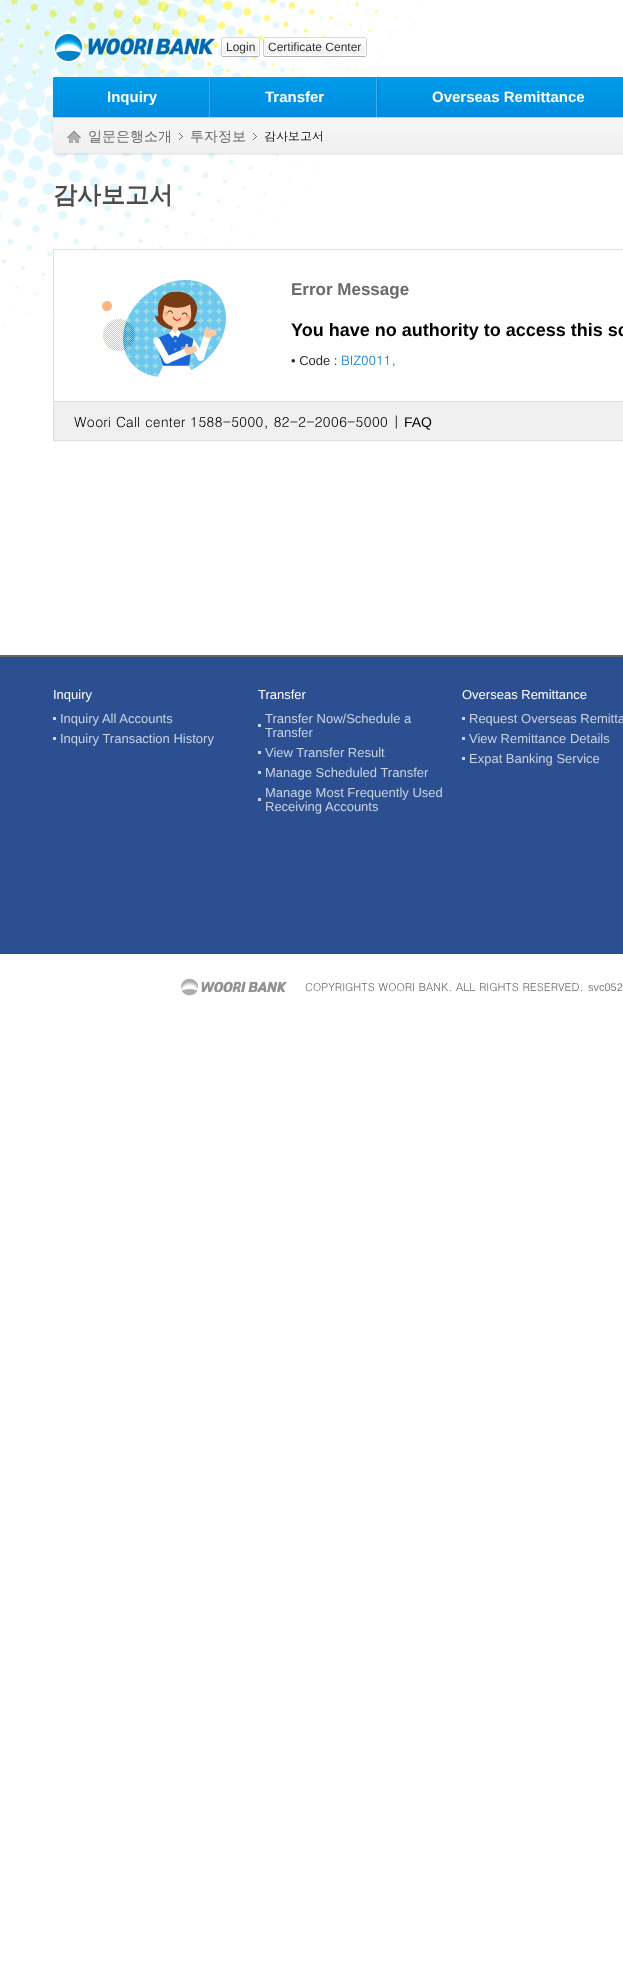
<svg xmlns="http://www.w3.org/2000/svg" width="623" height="1972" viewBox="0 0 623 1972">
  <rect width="100%" height="100%" fill="rgb(255,255,255)"/>
  <image x="0" y="0" width="422" height="327" href="pic1.png"/>
  <image x="53" y="32" width="31" height="31" href="pic2.png"/>
  <image x="88" y="38" width="127" height="17" href="pic3.png"/>
  <image x="221" y="37" width="37" height="20" href="pic4.png"/>
  <image x="258" y="37" width="2" height="20" href="pic5.png"/>
  <text x="226" y="51" font-family="Liberation Sans" font-size="12" fill="rgb(51,51,51)">Login</text>
  <image x="263" y="37" width="102" height="20" href="pic6.png"/>
  <image x="365" y="37" width="2" height="20" href="pic7.png"/>
  <text x="268" y="51" font-family="Liberation Sans" font-size="12" fill="rgb(51,51,51)">Certificate Center</text>
  <rect x="56" y="121" width="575" height="30" fill="rgb(102,102,102)" filter="blur(2.5px)"/>
  <image x="53" y="77" width="570" height="40" href="pic8.png"/>
  <image x="53" y="77" width="158" height="40" href="pic9.png"/>
  <text x="107" y="102" font-family="Liberation Sans" font-size="15" font-weight="bold" fill="rgb(255,255,255)">Inquiry</text>
  <image x="376" y="77" width="2" height="40" href="pic10.png"/>
  <g font-family="Liberation Sans" font-size="15" font-weight="bold" fill="rgb(255,255,255)">
    <text x="265" y="102">Transfer</text>
    <text x="432" y="102">Overseas Remittance</text>
  </g>
  <image x="53" y="118" width="570" height="35" href="pic11.png"/>
  <rect x="53" y="117" width="570" height="1" fill="rgb(212,212,212)"/>
  <image x="67" y="131" width="14" height="12" href="pic12.png"/>
  <image x="179" y="133" width="4" height="7" href="pic13.png"/>
  <text x="88" y="141" font-family="WenQuanYi Zen Hei" font-size="14" font-weight="500" fill="rgb(106,106,106)">일문은행소개</text>
  <image x="253" y="133" width="4" height="7" href="pic13.png"/>
  <text x="190" y="141" font-family="WenQuanYi Zen Hei" font-size="14" font-weight="500" fill="rgb(106,106,106)">투자정보</text>
  <text x="264" y="141" font-family="Dotum" font-size="12" fill="rgb(0,0,0)">감사보고서</text>
  <text x="53" y="203" font-family="WenQuanYi Zen Hei" font-size="24" font-weight="bold" fill="rgb(76,76,76)">감사보고서</text>
  <rect x="55" y="250" width="191" height="77" fill="rgb(255,255,255)"/>
  <image x="102" y="280" width="124" height="97" href="pic14.png"/>
  <rect x="53.5" y="249.5" width="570" height="152" fill="none" stroke="rgb(224,224,224)"/>
  <text x="291" y="295" font-family="Liberation Sans" font-size="17" font-weight="bold" fill="rgb(106,106,106)">Error Message</text>
  <text x="291" y="336" font-family="Liberation Sans" font-size="18" font-weight="bold" fill="rgb(0,0,0)">You have no authority to access this sc</text>
  <text x="291" y="365" font-family="Liberation Sans" font-size="13" fill="rgb(44,44,44)">• Code :</text>
  <text x="341" y="365" font-family="Dotum" font-size="13" fill="rgb(0,120,212)">BIZ0011,</text>
  <rect x="54" y="402" width="569" height="38" fill="rgb(240,240,240)"/>
  <rect x="53" y="440" width="570" height="1" fill="rgb(224,224,224)"/>
  <rect x="53" y="402" width="1" height="39" fill="rgb(224,224,224)"/>
  <text x="74" y="427" font-family="Dotum" font-size="14" fill="rgb(0,0,0)">Woori Call center 1588-5000, 82-2-2006-5000 |</text>
  <text x="404" y="427" font-family="Liberation Sans" font-size="14" fill="rgb(0,0,0)">FAQ</text>
  <rect x="0" y="657" width="623" height="297" fill="rgb(43,79,145)"/>
  <rect x="0" y="655" width="623" height="2" fill="rgb(102,102,102)"/>
  <text x="53" y="699" font-family="Liberation Sans" font-size="13" fill="rgb(255,255,255)">Inquiry</text>
  <rect x="53" y="717" width="3" height="3" fill="rgb(202,211,227)"/>
  <text x="60" y="723" font-family="Liberation Sans" font-size="13" fill="rgb(202,211,227)">Inquiry All Accounts</text>
  <rect x="53" y="737" width="3" height="3" fill="rgb(202,211,227)"/>
  <text x="60" y="743" font-family="Liberation Sans" font-size="13" fill="rgb(202,211,227)">Inquiry Transaction History</text>
  <text x="258" y="699" font-family="Liberation Sans" font-size="13" fill="rgb(255,255,255)">Transfer</text>
  <rect x="258" y="724" width="3" height="3" fill="rgb(202,211,227)"/>
  <g font-family="Liberation Sans" font-size="13" fill="rgb(202,211,227)">
    <text>
      <tspan x="265" y="723">Transfer Now/Schedule a</tspan>
      <tspan x="265" y="737">Transfer</tspan>
    </text>
  </g>
  <rect x="258" y="751" width="3" height="3" fill="rgb(202,211,227)"/>
  <text x="265" y="757" font-family="Liberation Sans" font-size="13" fill="rgb(202,211,227)">View Transfer Result</text>
  <rect x="258" y="771" width="3" height="3" fill="rgb(202,211,227)"/>
  <text x="265" y="777" font-family="Liberation Sans" font-size="13" fill="rgb(202,211,227)">Manage Scheduled Transfer</text>
  <rect x="258" y="798" width="3" height="3" fill="rgb(202,211,227)"/>
  <g font-family="Liberation Sans" font-size="13" fill="rgb(202,211,227)">
    <text>
      <tspan x="265" y="797">Manage Most Frequently Used</tspan>
      <tspan x="265" y="811">Receiving Accounts</tspan>
    </text>
  </g>
  <text x="462" y="699" font-family="Liberation Sans" font-size="13" fill="rgb(255,255,255)">Overseas Remittance</text>
  <rect x="462" y="717" width="3" height="3" fill="rgb(202,211,227)"/>
  <text x="469" y="723" font-family="Liberation Sans" font-size="13" fill="rgb(202,211,227)">Request Overseas Remitta</text>
  <rect x="462" y="737" width="3" height="3" fill="rgb(202,211,227)"/>
  <text x="469" y="743" font-family="Liberation Sans" font-size="13" fill="rgb(202,211,227)">View Remittance Details</text>
  <rect x="462" y="757" width="3" height="3" fill="rgb(202,211,227)"/>
  <text x="469" y="763" font-family="Liberation Sans" font-size="13" fill="rgb(202,211,227)">Expat Banking Service</text>
  <image x="181" y="978" width="106" height="18" href="pic15.png"/>
  <text x="305" y="991" font-family="Dotum" font-size="11" fill="rgb(106,106,106)">COPYRIGHTS WOORI BANK. ALL RIGHTS RESERVED.</text>
  <text x="588" y="991" font-family="Liberation Sans" font-size="11" fill="rgb(127,127,127)">svc052</text>
</svg>
